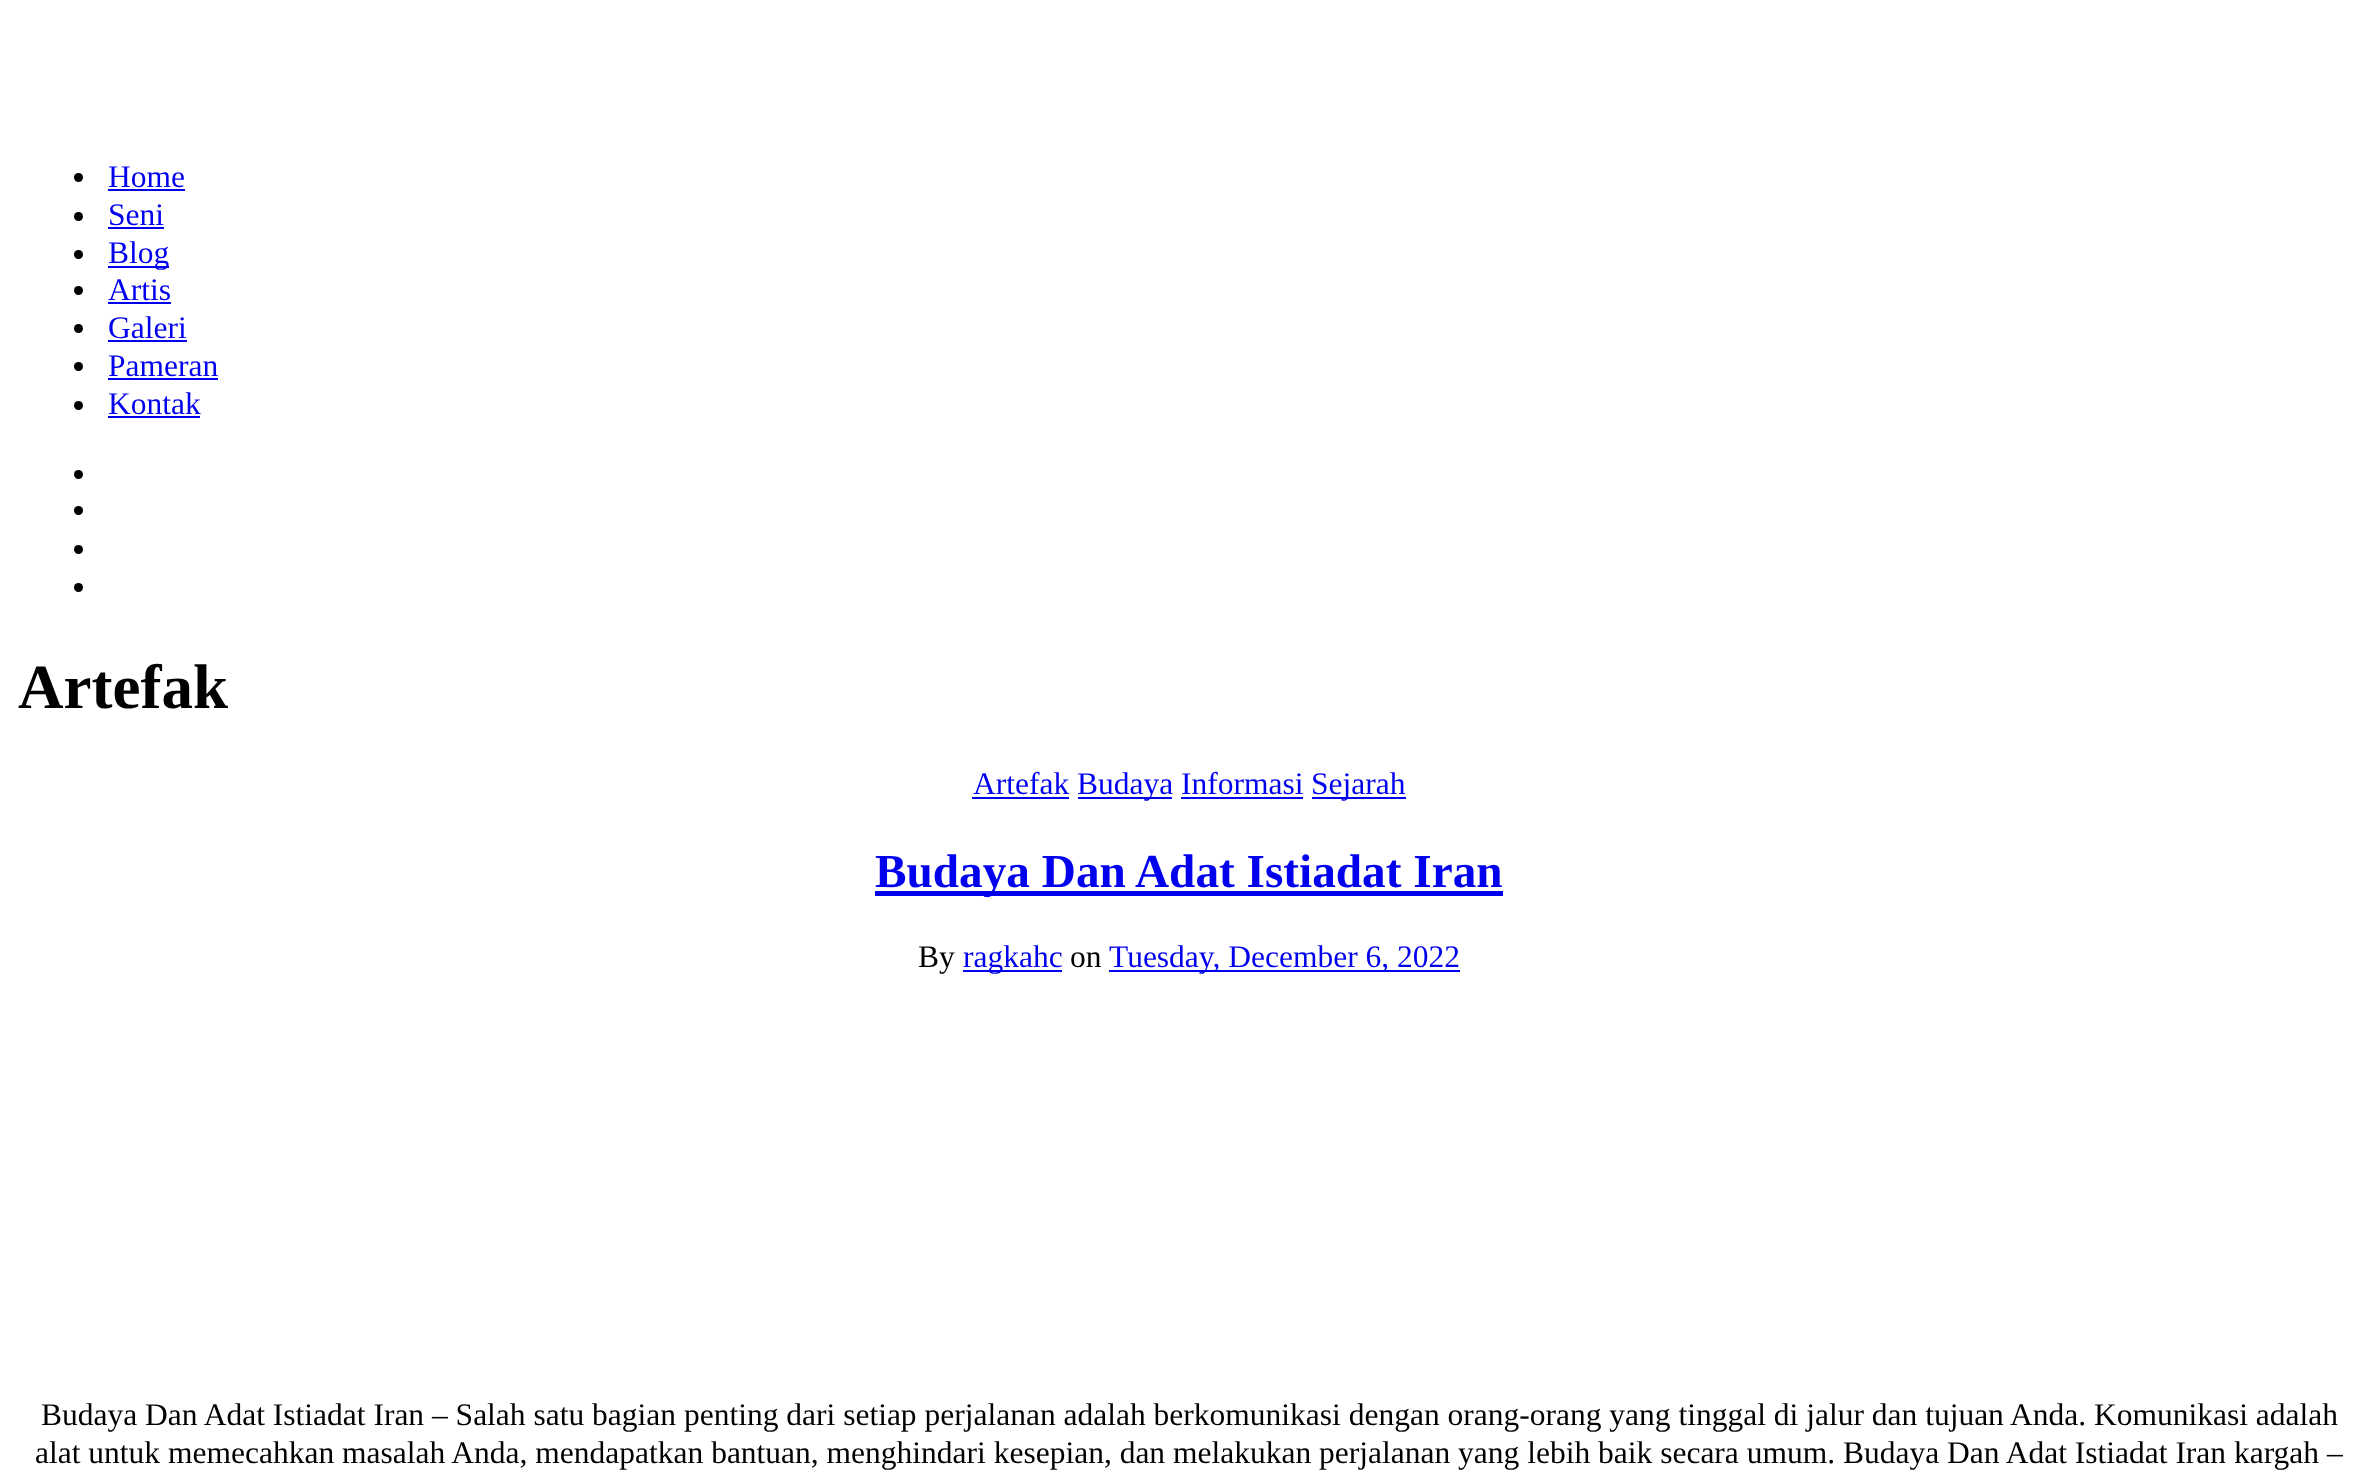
<svg xmlns="http://www.w3.org/2000/svg" width="2378" height="1474" viewBox="0 0 2378 1474">
  <rect width="100%" height="100%" fill="rgb(255,255,255)"/>
  <circle cx="78.5" cy="177.5" r="4.5" fill="rgb(0,0,0)"/>
  <text x="108" y="187" font-family="Liberation Serif" font-size="31.5" fill="rgb(0,0,238)">Home</text>
  <rect x="108" y="189" width="77" height="2" fill="rgb(0,0,238)"/>
  <circle cx="78.5" cy="216.5" r="4.5" fill="rgb(0,0,0)"/>
  <text x="108" y="225" font-family="Liberation Serif" font-size="31.5" fill="rgb(0,0,238)">Seni</text>
  <rect x="108" y="227" width="56" height="2" fill="rgb(0,0,238)"/>
  <circle cx="78.5" cy="254.5" r="4.5" fill="rgb(0,0,0)"/>
  <rect x="108" y="266" width="61" height="2" fill="rgb(0,0,238)"/>
  <text x="108" y="263" font-family="Liberation Serif" font-size="31.5" fill="rgb(0,0,238)">Blog</text>
  <circle cx="78.5" cy="290.5" r="4.5" fill="rgb(0,0,0)"/>
  <text x="108" y="300" font-family="Liberation Serif" font-size="31.5" fill="rgb(0,0,238)">Artis</text>
  <rect x="108" y="302" width="63" height="2" fill="rgb(0,0,238)"/>
  <circle cx="78.5" cy="328.5" r="4.5" fill="rgb(0,0,0)"/>
  <text x="108" y="338" font-family="Liberation Serif" font-size="31.5" fill="rgb(0,0,238)">Galeri</text>
  <rect x="108" y="340" width="79" height="2" fill="rgb(0,0,238)"/>
  <circle cx="78.5" cy="366.5" r="4.5" fill="rgb(0,0,0)"/>
  <text x="108" y="376" font-family="Liberation Serif" font-size="31.5" fill="rgb(0,0,238)">Pameran</text>
  <rect x="108" y="378" width="110" height="2" fill="rgb(0,0,238)"/>
  <circle cx="78.5" cy="405.5" r="4.5" fill="rgb(0,0,0)"/>
  <text x="108" y="414" font-family="Liberation Serif" font-size="31.5" fill="rgb(0,0,238)">Kontak</text>
  <rect x="108" y="416" width="92" height="2" fill="rgb(0,0,238)"/>
  <circle cx="78.5" cy="474.5" r="4.5" fill="rgb(0,0,0)"/>
  <circle cx="78.5" cy="510.5" r="4.5" fill="rgb(0,0,0)"/>
  <circle cx="78.5" cy="549.5" r="4.5" fill="rgb(0,0,0)"/>
  <circle cx="78.5" cy="587.5" r="4.5" fill="rgb(0,0,0)"/>
  <text x="18" y="708" font-family="Liberation Serif" font-size="63" font-weight="bold" fill="rgb(0,0,0)">Artefak</text>
  <text x="973" y="794" font-family="Liberation Serif" font-size="31.5" fill="rgb(0,0,238)">Artefak</text>
  <rect x="972" y="797" width="97" height="2" fill="rgb(0,0,238)"/>
  <rect x="1078" y="797" width="94" height="2" fill="rgb(0,0,238)"/>
  <text x="1077" y="794" font-family="Liberation Serif" font-size="31.5" fill="rgb(0,0,238)">Budaya Informasi</text>
  <rect x="1181" y="797" width="122" height="2" fill="rgb(0,0,238)"/>
  <rect x="1312" y="797" width="94" height="2" fill="rgb(0,0,238)"/>
  <text x="1311" y="794" font-family="Liberation Serif" font-size="31.5" fill="rgb(0,0,238)">Sejarah</text>
  <rect x="875" y="891" width="628" height="5" fill="rgb(0,0,238)"/>
  <text x="875" y="887" font-family="Liberation Serif" font-size="47.25" font-weight="bold" fill="rgb(0,0,238)">Budaya Dan Adat Istiadat Iran</text>
  <text x="918" y="967" font-family="Liberation Serif" font-size="31.5" fill="rgb(0,0,0)">By</text>
  <rect x="963" y="970" width="99" height="2" fill="rgb(0,0,238)"/>
  <text x="963" y="967" font-family="Liberation Serif" font-size="31.5" fill="rgb(0,0,238)">ragkahc</text>
  <text x="1070" y="967" font-family="Liberation Serif" font-size="31.5" fill="rgb(0,0,0)">on</text>
  <rect x="1109" y="970" width="351" height="2" fill="rgb(0,0,238)"/>
  <text x="1109" y="967" font-family="Liberation Serif" font-size="31.5" fill="rgb(0,0,238)">Tuesday, December 6, 2022</text>
  <g font-family="Liberation Serif" font-size="31.5" fill="rgb(0,0,0)">
    <text x="41" y="1425">Budaya Dan Adat Istiadat Iran – Salah satu bagian penting dari setiap perjalanan adalah berkomunikasi dengan orang-orang yang tinggal di jalur dan tujuan Anda. Komunikasi adalah</text>
    <text x="35" y="1463">alat untuk memecahkan masalah Anda, mendapatkan bantuan, menghindari kesepian, dan melakukan perjalanan yang lebih baik secara umum. Budaya Dan Adat Istiadat Iran kargah –</text>
  </g>
</svg>
